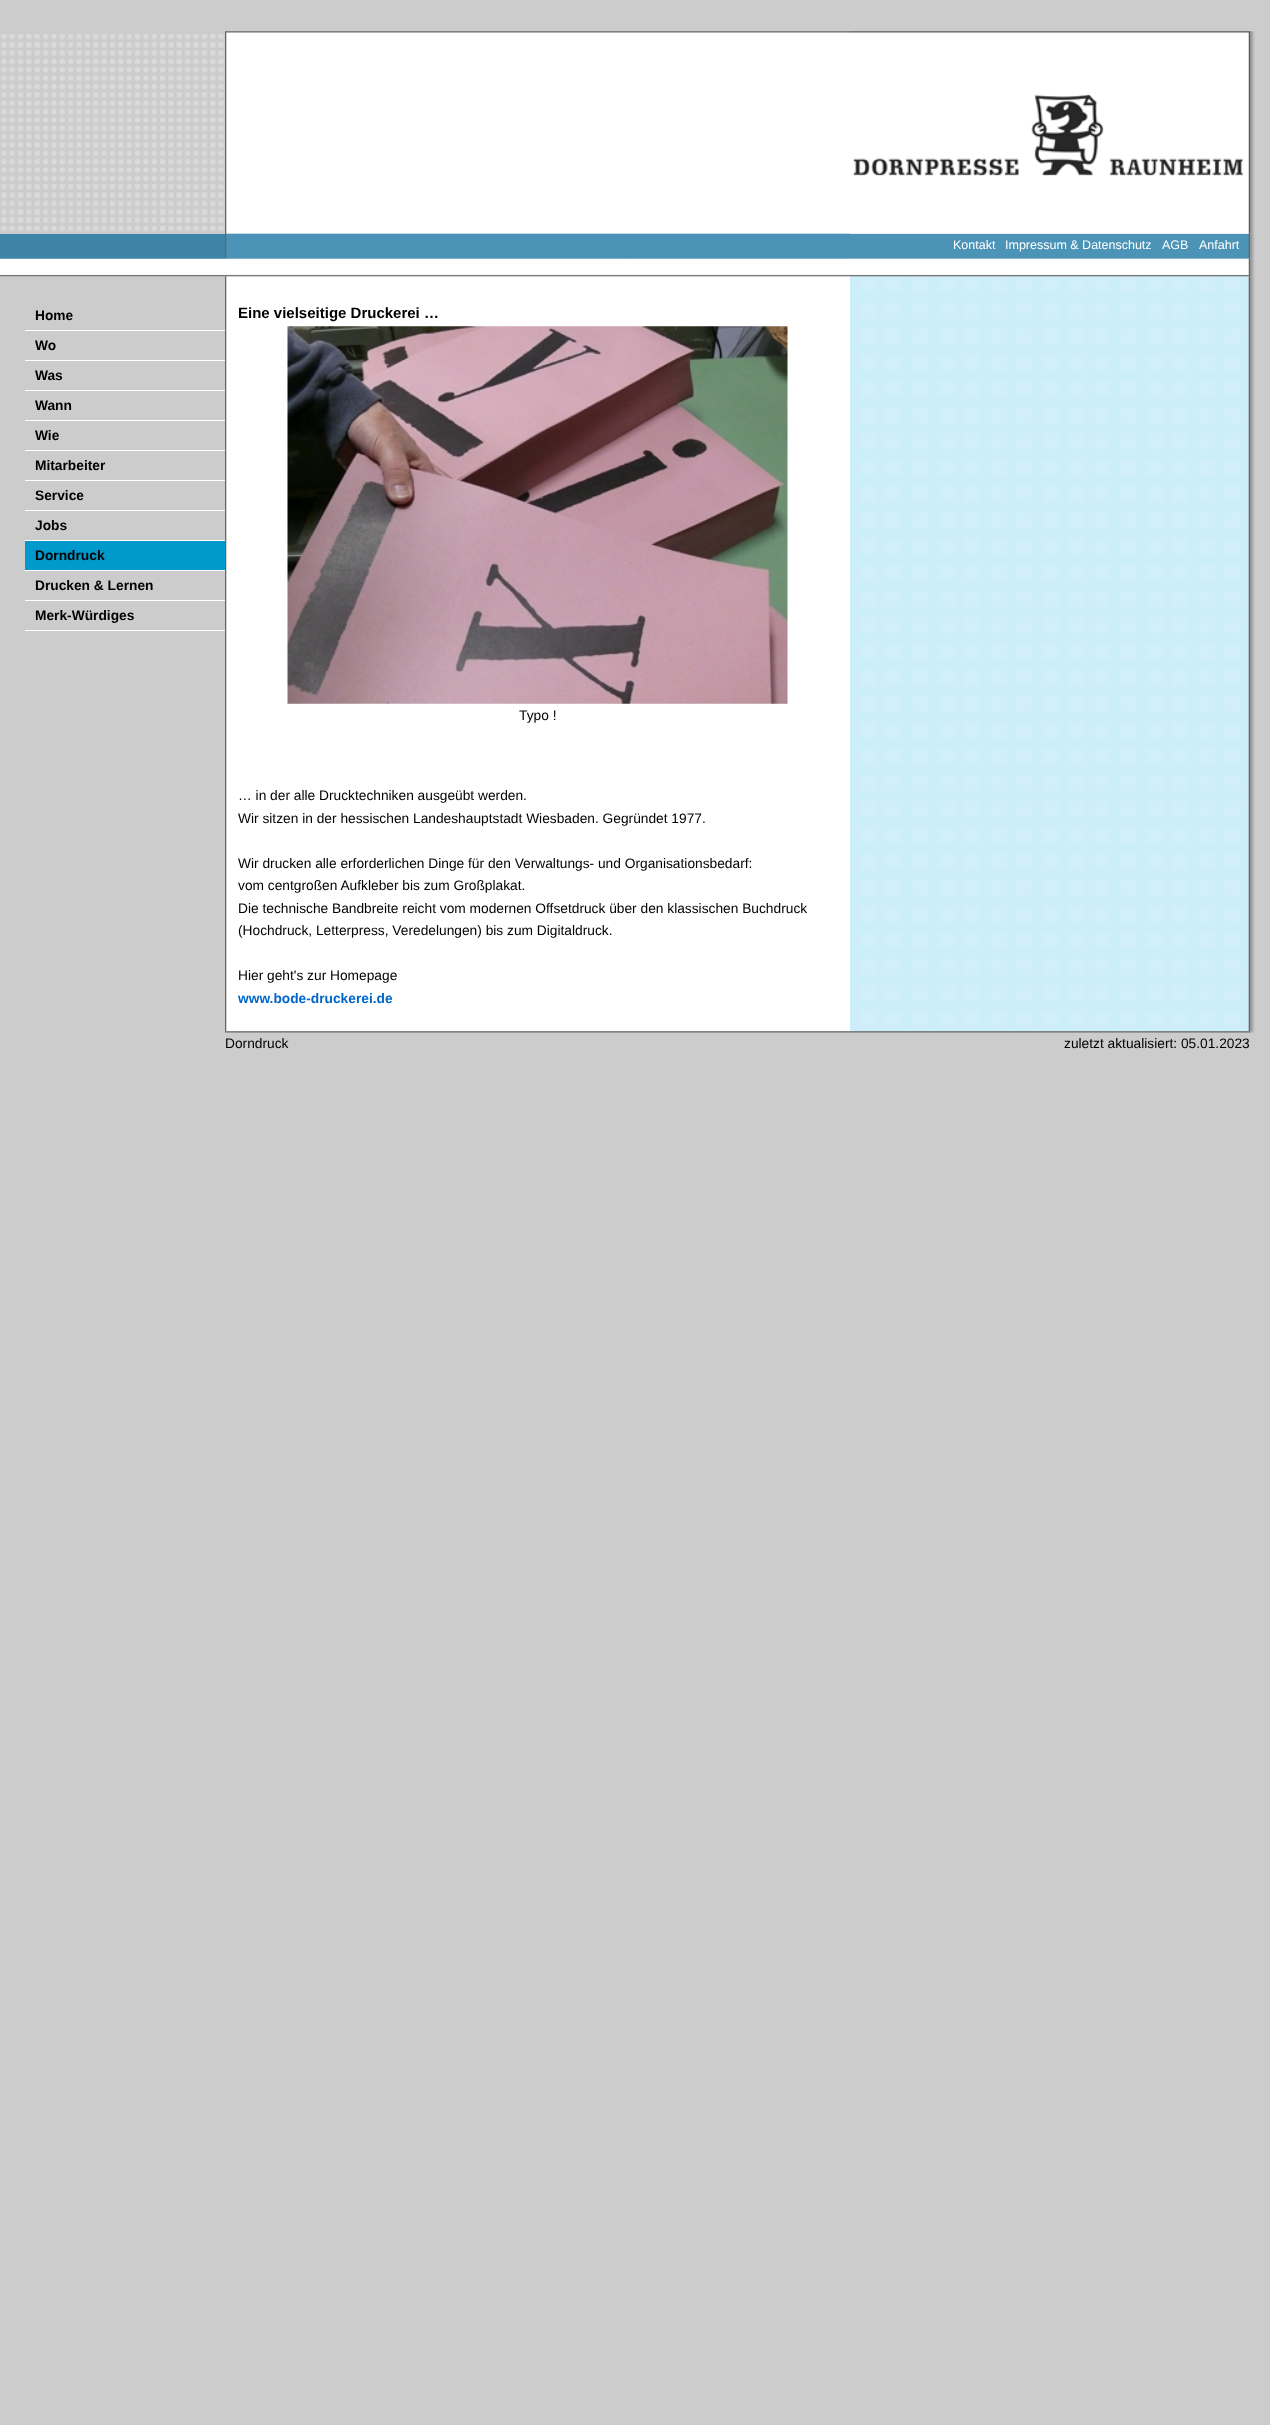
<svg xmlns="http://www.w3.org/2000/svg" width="1270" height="2425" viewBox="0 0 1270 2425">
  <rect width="100%" height="100%" fill="rgb(204,204,204)"/>
  <image x="1" y="34" width="223" height="197" href="pic1.png"/>
  <image x="225" y="233" width="625" height="26" href="pic5.png"/>
  <image x="225" y="31" width="625" height="203" href="pic2.png"/>
  <image x="850" y="233" width="400" height="26" href="pic7.png"/>
  <image x="850" y="31" width="400" height="203" href="pic3.png"/>
  <image x="1250" y="31" width="5" height="203" href="pic4.png"/>
  <rect x="0" y="234" width="225" height="25" fill="rgb(61,132,168)"/>
  <image x="225" y="233" width="625" height="26" href="pic6.png"/>
  <g font-family="Liberation Sans" font-size="12.5" fill="rgb(255,255,255)">
    <text x="953" y="249">Kontakt</text>
    <text x="1005" y="249">Impressum &amp; Datenschutz</text>
    <text x="1162" y="249">AGB</text>
    <text x="1199" y="249">Anfahrt</text>
  </g>
  <image x="1250" y="234" width="5" height="25" href="pic8.png"/>
  <image x="0" y="258" width="225" height="19" href="pic9.png"/>
  <image x="225" y="276" width="625" height="756" href="pic13.png"/>
  <image x="225" y="258" width="625" height="19" href="pic10.png"/>
  <image x="850" y="276" width="400" height="756" href="pic15.png"/>
  <image x="850" y="258" width="400" height="19" href="pic11.png"/>
  <image x="1250" y="259" width="5" height="18" href="pic12.png"/>
  <rect x="25" y="330" width="200" height="1" fill="rgb(255,255,255)"/>
  <text x="35" y="320" font-family="Liberation Sans" font-size="13.75" font-weight="bold" fill="rgb(0,0,0)">Home</text>
  <rect x="25" y="360" width="200" height="1" fill="rgb(255,255,255)"/>
  <text x="35" y="350" font-family="Liberation Sans" font-size="13.75" font-weight="bold" fill="rgb(0,0,0)">Wo</text>
  <rect x="25" y="390" width="200" height="1" fill="rgb(255,255,255)"/>
  <text x="35" y="380" font-family="Liberation Sans" font-size="13.75" font-weight="bold" fill="rgb(0,0,0)">Was</text>
  <rect x="25" y="420" width="200" height="1" fill="rgb(255,255,255)"/>
  <text x="35" y="410" font-family="Liberation Sans" font-size="13.75" font-weight="bold" fill="rgb(0,0,0)">Wann</text>
  <rect x="25" y="450" width="200" height="1" fill="rgb(255,255,255)"/>
  <text x="35" y="440" font-family="Liberation Sans" font-size="13.75" font-weight="bold" fill="rgb(0,0,0)">Wie</text>
  <rect x="25" y="480" width="200" height="1" fill="rgb(255,255,255)"/>
  <text x="35" y="470" font-family="Liberation Sans" font-size="13.75" font-weight="bold" fill="rgb(0,0,0)">Mitarbeiter</text>
  <rect x="25" y="510" width="200" height="1" fill="rgb(255,255,255)"/>
  <text x="35" y="500" font-family="Liberation Sans" font-size="13.75" font-weight="bold" fill="rgb(0,0,0)">Service</text>
  <rect x="25" y="540" width="200" height="1" fill="rgb(255,255,255)"/>
  <text x="35" y="530" font-family="Liberation Sans" font-size="13.75" font-weight="bold" fill="rgb(0,0,0)">Jobs</text>
  <rect x="25" y="541" width="200" height="29" fill="rgb(0,153,204)"/>
  <rect x="25" y="570" width="200" height="1" fill="rgb(255,255,255)"/>
  <text x="35" y="560" font-family="Liberation Sans" font-size="13.75" font-weight="bold" fill="rgb(0,0,0)">Dorndruck</text>
  <rect x="25" y="600" width="200" height="1" fill="rgb(255,255,255)"/>
  <text x="35" y="590" font-family="Liberation Sans" font-size="13.75" font-weight="bold" fill="rgb(0,0,0)">Drucken &amp; Lernen</text>
  <rect x="25" y="630" width="200" height="1" fill="rgb(255,255,255)"/>
  <text x="35" y="620" font-family="Liberation Sans" font-size="13.75" font-weight="bold" fill="rgb(0,0,0)">Merk-Würdiges</text>
  <text x="238" y="318" font-family="Liberation Sans" font-size="15" font-weight="bold" fill="rgb(0,0,0)">Eine vielseitige Druckerei …</text>
  <image x="287" y="326" width="501" height="378" href="pic14.png"/>
  <g font-family="Liberation Sans" font-size="13.75" fill="rgb(0,0,0)">
    <text x="519" y="720">Typo !</text>
    <text>
      <tspan x="238" y="800">… in der alle Drucktechniken ausgeübt werden.</tspan>
      <tspan x="238" y="823">Wir sitzen in der hessischen Landeshauptstadt Wiesbaden. Gegründet 1977.</tspan>
    </text>
    <text>
      <tspan x="238" y="868">Wir drucken alle erforderlichen Dinge für den Verwaltungs- und Organisationsbedarf:</tspan>
      <tspan x="238" y="890">vom centgroßen Aufkleber bis zum Großplakat.</tspan>
      <tspan x="238" y="913">Die technische Bandbreite reicht vom modernen Offsetdruck über den klassischen Buchdruck</tspan>
      <tspan x="238" y="935">(Hochdruck, Letterpress, Veredelungen) bis zum Digitaldruck.</tspan>
    </text>
    <text x="238" y="980">Hier geht's zur Homepage</text>
  </g>
  <text x="238" y="1003" font-family="Liberation Sans" font-size="13.75" font-weight="bold" fill="rgb(0,102,204)">www.bode-druckerei.de</text>
  <image x="1250" y="276" width="5" height="756" href="pic16.png"/>
  <image x="1250" y="1031" width="5" height="2" href="pic17.png"/>
  <image x="225" y="1031" width="625" height="2" href="pic18.png"/>
  <text x="225" y="1048" font-family="Liberation Sans" font-size="13.75" fill="rgb(0,0,0)">Dorndruck</text>
  <image x="850" y="1031" width="400" height="2" href="pic19.png"/>
  <text x="1064" y="1048" font-family="Liberation Sans" font-size="13.75" fill="rgb(0,0,0)">zuletzt aktualisiert: 05.01.2023</text>
</svg>
